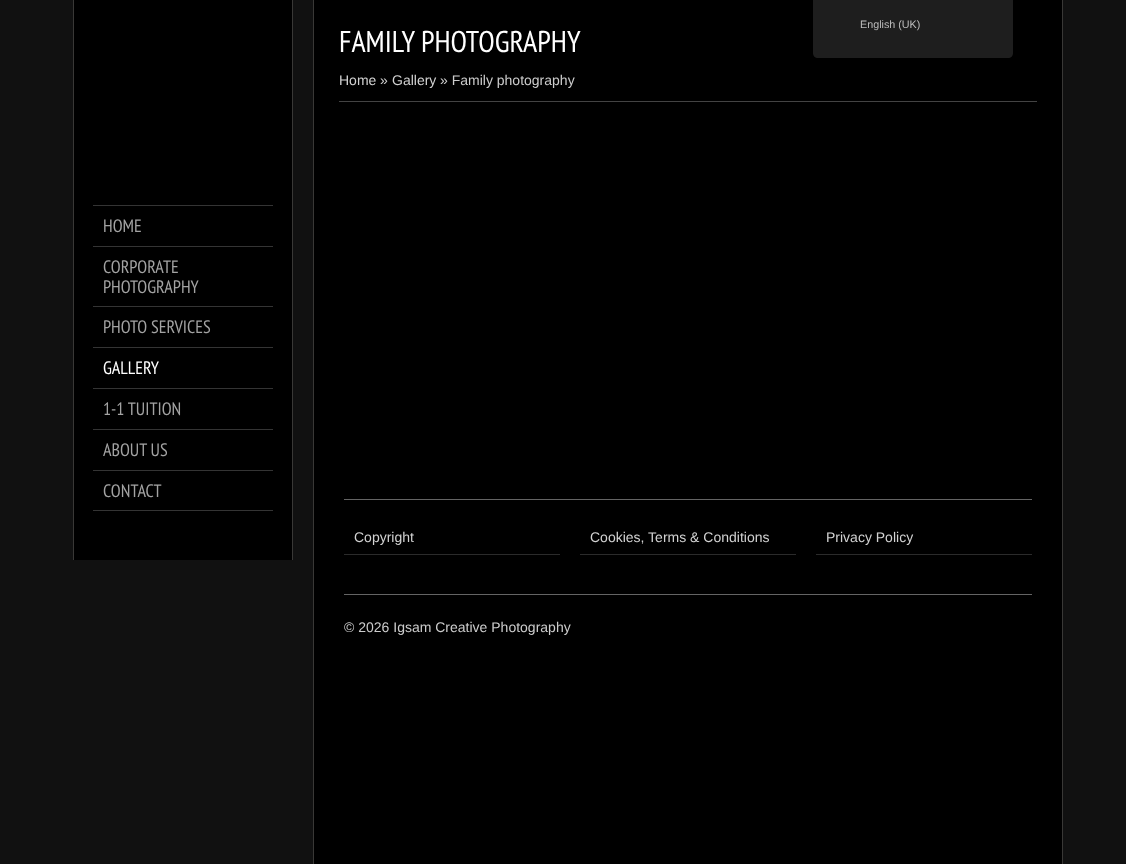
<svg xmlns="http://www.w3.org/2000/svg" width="1126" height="864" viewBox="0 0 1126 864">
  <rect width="100%" height="100%" fill="rgb(17,17,17)"/>
  <rect x="314" y="0" width="748" height="864" fill="rgb(0,0,0)"/>
  <path d="M813 0H1013V53C1013 56 1011 58 1008 58H818C815 58 813 56 813 53Z" fill="rgb(30,30,30)"/>
  <text x="860" y="28" font-family="Liberation Sans" font-size="10.75" fill="rgb(189,189,189)">English (UK)</text>
  <rect x="74" y="0" width="218" height="560" fill="rgb(0,0,0)"/>
  <rect x="292" y="0" width="1" height="560" fill="rgb(57,56,54)"/>
  <rect x="73" y="0" width="1" height="560" fill="rgb(57,56,54)"/>
  <rect x="93" y="205" width="180" height="1" fill="rgb(52,52,52)"/>
  <rect x="93" y="246" width="180" height="1" fill="rgb(52,52,52)"/>
  <text x="103" y="232" font-family="PT Sans Narrow" font-size="18" fill="rgb(163,163,163)">HOME</text>
  <rect x="93" y="306" width="180" height="1" fill="rgb(52,52,52)"/>
  <g font-family="PT Sans Narrow" font-size="18" fill="rgb(163,163,163)">
    <text>
      <tspan x="103" y="273">CORPORATE</tspan>
      <tspan x="103" y="293">PHOTOGRAPHY</tspan>
    </text>
  </g>
  <rect x="93" y="347" width="180" height="1" fill="rgb(52,52,52)"/>
  <text x="103" y="333" font-family="PT Sans Narrow" font-size="18" fill="rgb(163,163,163)">PHOTO SERVICES</text>
  <rect x="93" y="388" width="180" height="1" fill="rgb(52,52,52)"/>
  <text x="103" y="374" font-family="PT Sans Narrow" font-size="18" fill="rgb(255,255,255)">GALLERY</text>
  <rect x="93" y="429" width="180" height="1" fill="rgb(52,52,52)"/>
  <text x="103" y="415" font-family="PT Sans Narrow" font-size="18" fill="rgb(163,163,163)">1-1 TUITION</text>
  <rect x="93" y="470" width="180" height="1" fill="rgb(52,52,52)"/>
  <text x="103" y="456" font-family="PT Sans Narrow" font-size="18" fill="rgb(163,163,163)">ABOUT US</text>
  <rect x="93" y="510" width="180" height="1" fill="rgb(52,52,52)"/>
  <text x="103" y="497" font-family="PT Sans Narrow" font-size="18" fill="rgb(163,163,163)">CONTACT</text>
  <rect x="1062" y="0" width="1" height="864" fill="rgb(57,56,54)"/>
  <rect x="313" y="0" width="1" height="864" fill="rgb(57,56,54)"/>
  <text x="339" y="52" font-family="PT Sans Narrow" font-size="30" fill="rgb(255,255,255)">FAMILY PHOTOGRAPHY</text>
  <rect x="339" y="101" width="698" height="1" fill="rgb(67,67,67)"/>
  <text x="339" y="85" font-family="Liberation Sans" font-size="14" fill="rgb(210,210,210)">Home</text>
  <text x="380" y="85" font-family="Liberation Sans" font-size="14" fill="rgb(204,204,204)">»</text>
  <text x="392" y="85" font-family="Liberation Sans" font-size="14" fill="rgb(210,210,210)">Gallery</text>
  <text x="440" y="85" font-family="Liberation Sans" font-size="14" fill="rgb(204,204,204)">» Family photography</text>
  <rect x="344" y="499" width="688" height="1" fill="rgb(100,100,100)"/>
  <rect x="344" y="554" width="216" height="1" fill="rgb(43,43,43)"/>
  <text x="354" y="542" font-family="Liberation Sans" font-size="14" fill="rgb(210,210,210)">Copyright</text>
  <rect x="580" y="554" width="216" height="1" fill="rgb(43,43,43)"/>
  <text x="590" y="542" font-family="Liberation Sans" font-size="14" fill="rgb(210,210,210)">Cookies, Terms &amp; Conditions</text>
  <rect x="816" y="554" width="216" height="1" fill="rgb(43,43,43)"/>
  <text x="826" y="542" font-family="Liberation Sans" font-size="14" fill="rgb(210,210,210)">Privacy Policy</text>
  <rect x="344" y="594" width="688" height="1" fill="rgb(100,100,100)"/>
  <text x="344" y="632" font-family="Liberation Sans" font-size="14" fill="rgb(204,204,204)">© 2026 Igsam Creative Photography</text>
</svg>
